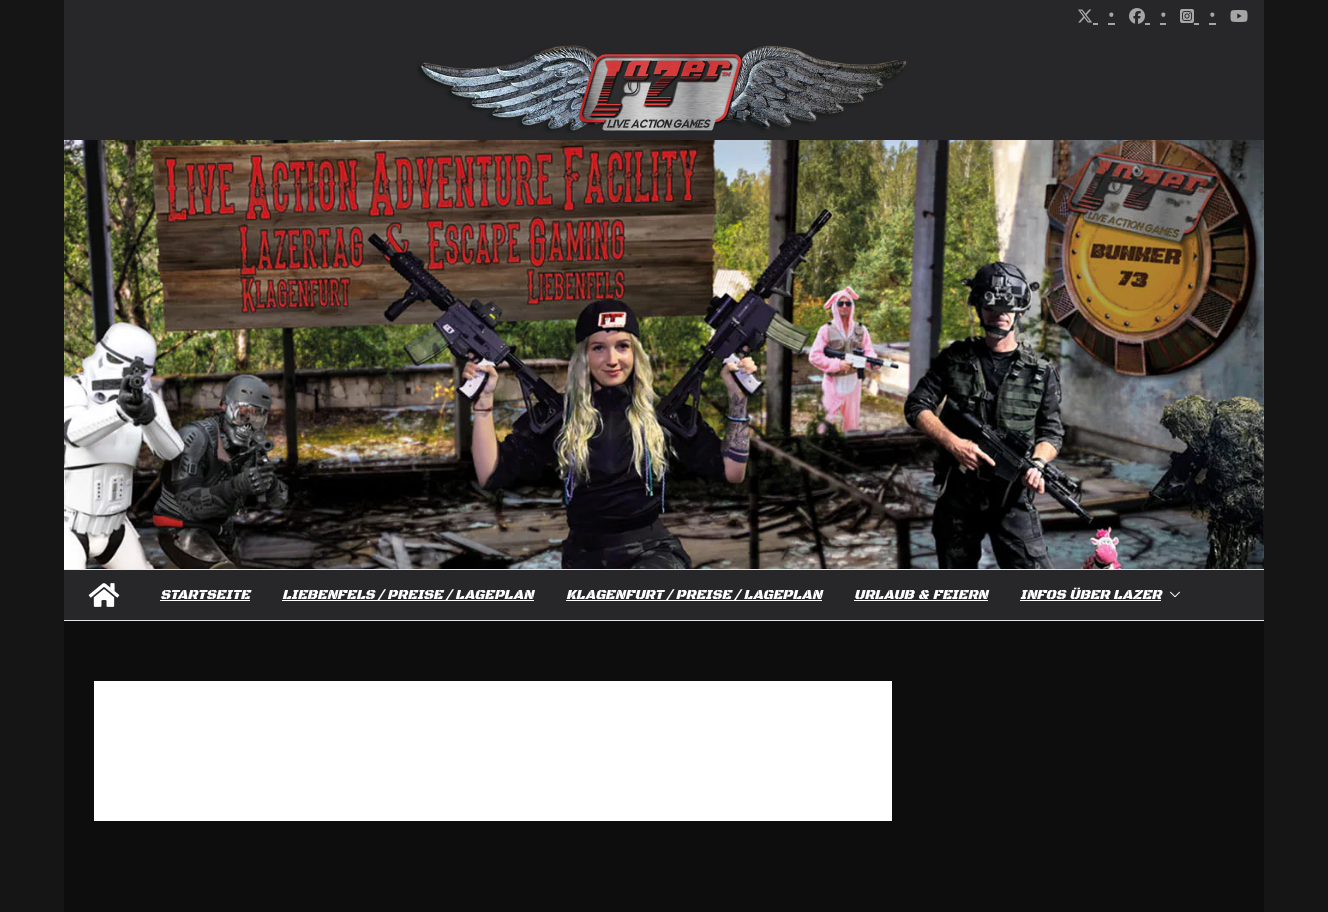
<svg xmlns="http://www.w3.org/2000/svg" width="1328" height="912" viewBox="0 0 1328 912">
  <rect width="100%" height="100%" fill="rgb(21,21,21)"/>
  <rect x="64" y="621" width="1200" height="291" fill="rgb(13,13,13)"/>
  <rect x="64" y="620" width="1200" height="1" fill="rgb(228,228,231)"/>
  <rect x="64" y="0" width="1200" height="140" fill="rgb(39,39,42)"/>
  <image x="1078" y="9" width="15" height="14" href="pic1.png"/>
  <text x="1108" y="22" font-family="Roboto" font-size="20" fill="rgb(166,166,166)">•</text>
  <rect x="1108" y="23" width="7" height="2" fill="rgb(166,166,166)"/>
  <rect x="1093" y="23" width="5" height="2" fill="rgb(166,166,166)"/>
  <image x="1129" y="8" width="16" height="16" href="pic2.png"/>
  <text x="1160" y="22" font-family="Roboto" font-size="20" fill="rgb(166,166,166)">•</text>
  <rect x="1160" y="23" width="6" height="2" fill="rgb(166,166,166)"/>
  <rect x="1145" y="23" width="5" height="2" fill="rgb(166,166,166)"/>
  <image x="1180" y="9" width="14" height="14" href="pic3.png"/>
  <text x="1209" y="22" font-family="Roboto" font-size="20" fill="rgb(166,166,166)">•</text>
  <rect x="1209" y="23" width="7" height="2" fill="rgb(166,166,166)"/>
  <rect x="1194" y="23" width="5" height="2" fill="rgb(166,166,166)"/>
  <image x="1230" y="10" width="18" height="12" href="pic4.png"/>
  <image x="417" y="45" width="491" height="88" href="pic5.png"/>
  <image x="64" y="140" width="1200" height="429" href="pic6.png"/>
  <rect x="64" y="569" width="1200" height="1" fill="rgb(235,235,235)"/>
  <rect x="64" y="570" width="1200" height="50" fill="rgb(39,39,42)"/>
  <image x="88" y="583" width="32" height="24" href="pic7.png"/>
  <text x="160" y="599" font-family="Black Ops One" font-size="14" font-weight="900" font-style="italic" fill="rgb(255,255,255)">STARTSEITE</text>
  <rect x="160" y="600" width="90" height="1" fill="rgb(255,255,255)"/>
  <rect x="282" y="600" width="252" height="1" fill="rgb(255,255,255)"/>
  <text x="282" y="599" font-family="Black Ops One" font-size="14" font-weight="900" font-style="italic" fill="rgb(255,255,255)">LIEBENFELS / PREISE / LAGEPLAN</text>
  <rect x="566" y="600" width="256" height="1" fill="rgb(255,255,255)"/>
  <g font-family="Black Ops One" font-size="14" font-weight="900" font-style="italic" fill="rgb(255,255,255)">
    <text x="566" y="599">KLAGENFURT / PREISE / LAGEPLAN</text>
    <text x="854" y="599">URLAUB &amp; FEIERN</text>
  </g>
  <rect x="854" y="600" width="134" height="1" fill="rgb(255,255,255)"/>
  <text x="1020" y="599" font-family="Black Ops One" font-size="14" font-weight="900" font-style="italic" fill="rgb(255,255,255)">INFOS ÜBER LAZER</text>
  <rect x="1020" y="600" width="141" height="1" fill="rgb(255,255,255)"/>
  <image x="1170" y="591" width="10" height="7" href="pic8.png"/>
  <rect x="94" y="681" width="798" height="140" fill="rgb(255,255,255)"/>
</svg>
